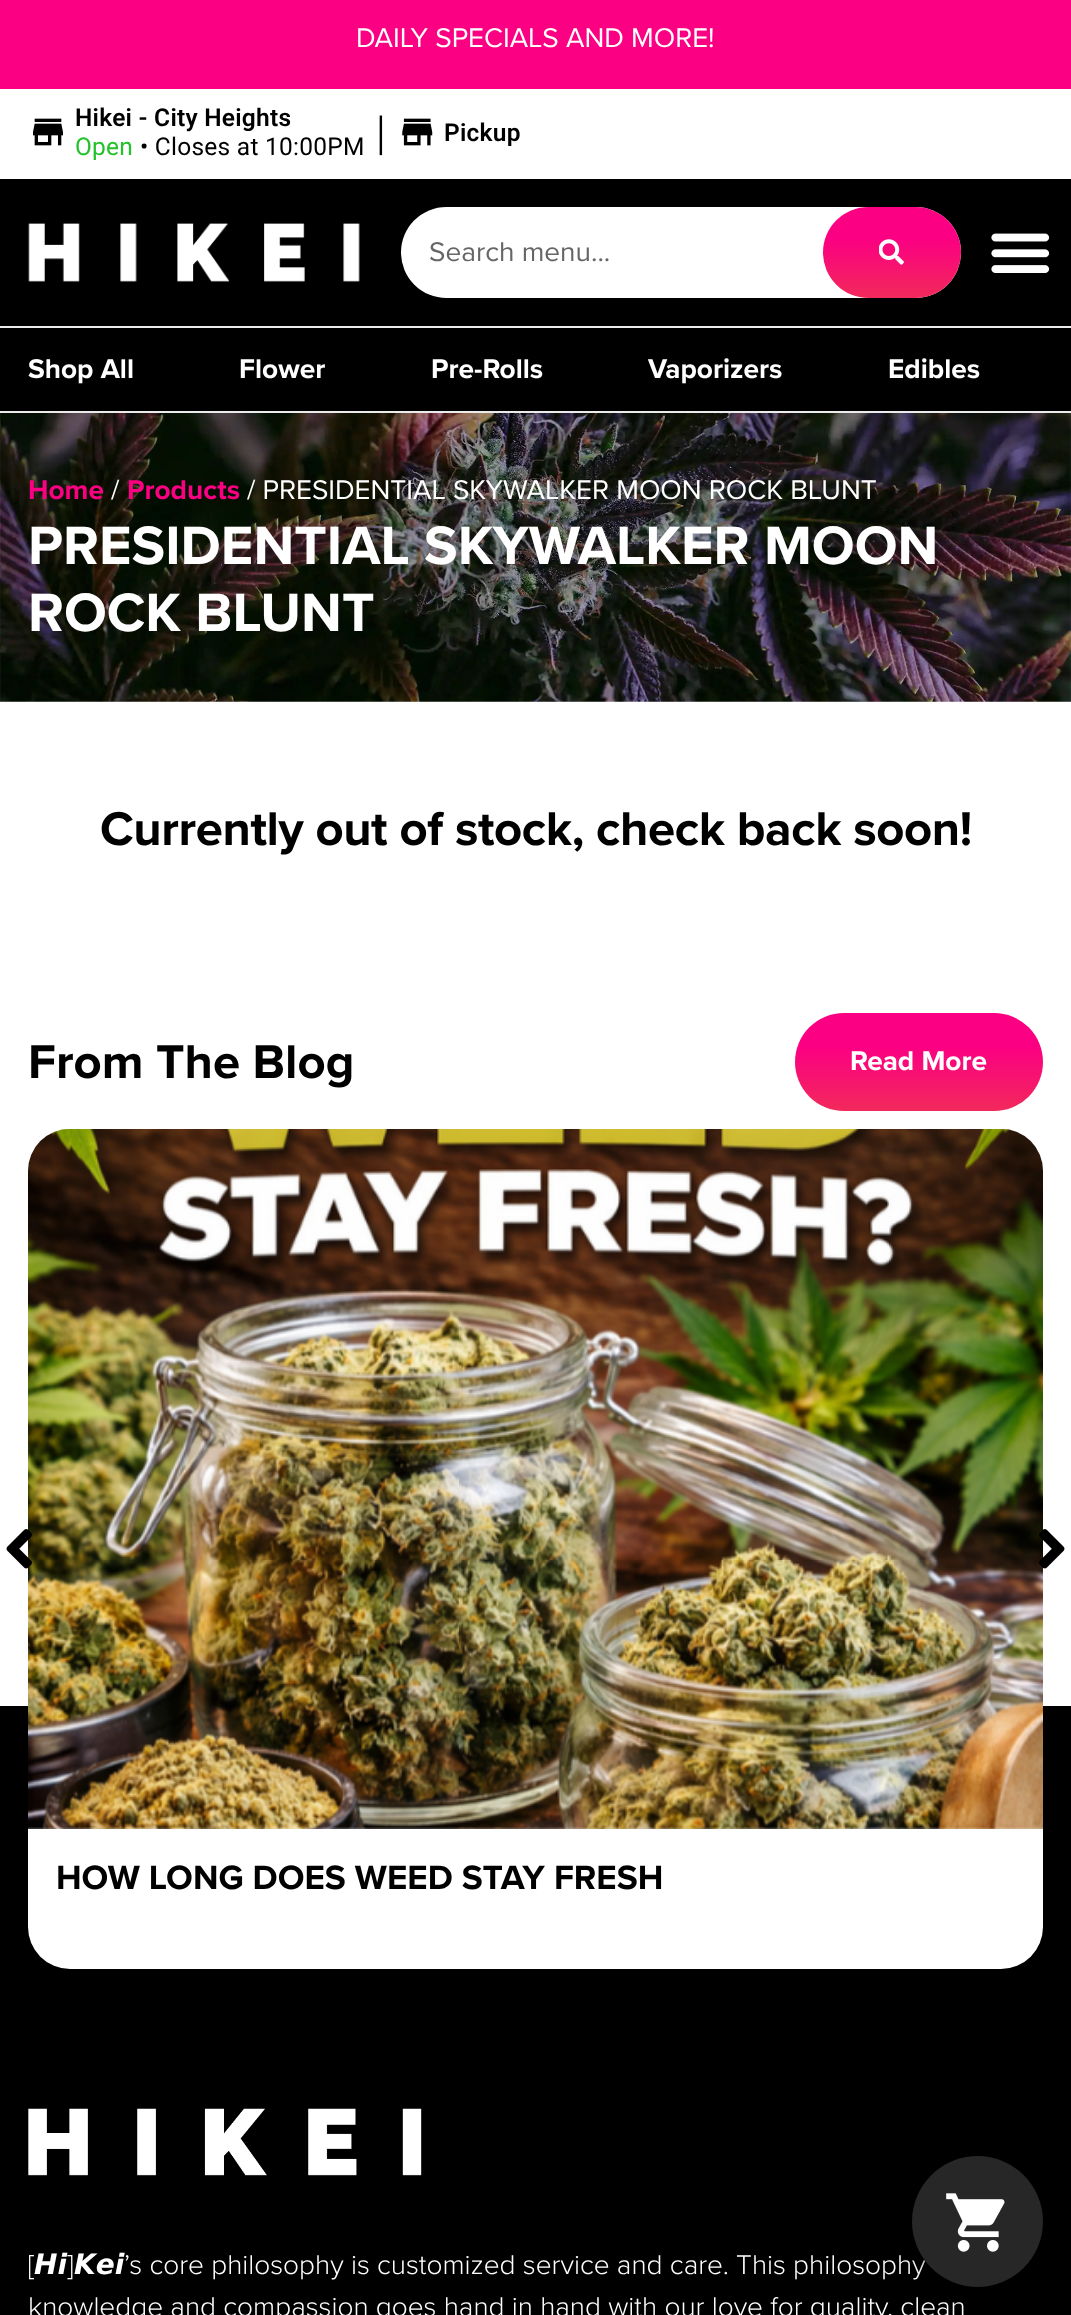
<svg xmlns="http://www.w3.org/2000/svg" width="1071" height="2315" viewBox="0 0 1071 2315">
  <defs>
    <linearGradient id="g1" gradientUnits="userSpaceOnUse" x1="892" y1="207" x2="892" y2="298"><stop offset="0.35" stop-color="rgb(251,0,130)"/><stop offset="1" stop-color="rgb(242,41,91)"/></linearGradient>
    <linearGradient id="g2" gradientUnits="userSpaceOnUse" x1="919" y1="1013" x2="919" y2="1111"><stop offset="0.35" stop-color="rgb(251,0,130)"/><stop offset="1" stop-color="rgb(242,41,91)"/></linearGradient>
  </defs>
  <rect width="100%" height="100%" fill="rgb(255,255,255)"/>
  <rect x="0" y="0" width="1071" height="89" fill="rgb(251,0,130)"/>
  <text x="356" y="47" font-family="Proxima Nova" font-size="28" fill="rgb(255,255,255)">DAILY SPECIALS AND MORE!</text>
  <image x="33" y="118" width="30" height="28" href="pic1.png"/>
  <text x="75" y="126" font-family="Roboto" font-size="24.5" font-weight="600" letter-spacing="0.25" fill="rgb(0,0,0)">Hikei - City Heights</text>
  <text x="75" y="155" font-family="Roboto" font-size="24.5" letter-spacing="0.25" fill="rgb(35,194,42)">Open</text>
  <text x="140" y="155" font-family="Roboto" font-size="24.5" letter-spacing="0.25" fill="rgb(0,0,0)">• Closes at 10:00PM</text>
  <text x="375" y="154" font-family="Proxima Nova" font-size="56" font-weight="300" fill="rgb(0,0,0)">|</text>
  <image x="402" y="118" width="31" height="28" href="pic2.png"/>
  <text x="444" y="141" font-family="Roboto" font-size="24.5" font-weight="600" letter-spacing="0.25" fill="rgb(0,0,0)">Pickup</text>
  <rect x="0" y="179" width="1071" height="147" fill="rgb(0,0,0)"/>
  <image x="28" y="223" width="332" height="59" href="pic3.png"/>
  <rect x="401" y="207" width="560" height="91" rx="45.5" fill="rgb(255,255,255)"/>
  <text x="429" y="261" font-family="Proxima Nova" font-size="28" fill="rgb(102,102,102)">Search menu...</text>
  <rect x="823" y="207" width="138" height="91" rx="45.5" fill="url(#g1)"/>
  <image x="879" y="239" width="25" height="26" href="pic4.png"/>
  <image x="991" y="233" width="59" height="40" href="pic5.png"/>
  <rect x="0" y="328" width="1071" height="83" fill="rgb(0,0,0)"/>
  <rect x="0" y="326" width="1071" height="2" fill="rgb(235,235,235)"/>
  <rect x="0" y="411" width="1071" height="2" fill="rgb(235,235,235)"/>
  <g font-family="Proxima Nova" font-size="28" font-weight="bold" fill="rgb(255,255,255)">
    <text x="28" y="378">Shop All</text>
    <text x="239" y="378">Flower</text>
    <text x="431" y="378">Pre-Rolls</text>
    <text x="648" y="378">Vaporizers</text>
    <text x="888" y="378">Edibles</text>
  </g>
  <image x="0" y="413" width="1071" height="289" href="pic6.png"/>
  <text x="28" y="499" font-family="Proxima Nova" font-size="28" font-weight="bold" fill="rgb(251,0,130)">Home</text>
  <text x="111" y="499" font-family="Proxima Nova" font-size="28" fill="rgb(255,255,255)">/</text>
  <text x="127" y="499" font-family="Proxima Nova" font-size="28" font-weight="bold" fill="rgb(251,0,130)">Products</text>
  <text x="247" y="499" font-family="Proxima Nova" font-size="28" fill="rgb(255,255,255)">/ PRESIDENTIAL SKYWALKER MOON ROCK BLUNT</text>
  <g font-family="Proxima Nova" font-size="56" font-weight="bold" fill="rgb(255,255,255)">
    <text>
      <tspan x="28" y="564">PRESIDENTIAL SKYWALKER MOON</tspan>
      <tspan x="28" y="631">ROCK BLUNT</tspan>
    </text>
  </g>
  <text x="100" y="845" font-family="Proxima Nova" font-size="49" font-weight="bold" letter-spacing="-0.4" fill="rgb(0,0,0)">Currently out of stock, check back soon!</text>
  <rect x="0" y="1706" width="1071" height="609" fill="rgb(0,0,0)"/>
  <text x="28" y="1078" font-family="Proxima Nova" font-size="49" font-weight="bold" fill="rgb(0,0,0)">From The Blog</text>
  <rect x="795" y="1013" width="248" height="98" rx="49" fill="url(#g2)"/>
  <text x="850" y="1070" font-family="Proxima Nova" font-size="28" font-weight="bold" fill="rgb(255,255,255)">Read More</text>
  <rect x="28" y="1129" width="1015" height="840" rx="42" fill="rgb(255,255,255)"/>
  <image x="28" y="1129" width="1015" height="700" href="pic9.png"/>
  <image x="6" y="1529" width="26" height="40" href="pic7.png"/>
  <image x="1039" y="1529" width="26" height="40" href="pic8.png"/>
  <text x="56" y="1889" font-family="Proxima Nova" font-size="35" font-weight="bold" fill="rgb(0,0,0)">HOW LONG DOES WEED STAY FRESH</text>
  <image x="28" y="2108" width="394" height="68" href="pic10.png"/>
  <text x="28" y="2274" font-family="Proxima Nova" font-size="28" font-weight="300" fill="rgb(255,255,255)">[</text>
  <text x="34" y="2274" font-family="DejaVu Sans" font-size="28" font-weight="bold" font-style="italic" fill="rgb(255,255,255)">𝙃𝙞</text>
  <text x="67" y="2274" font-family="Proxima Nova" font-size="28" font-weight="300" fill="rgb(255,255,255)">]</text>
  <text x="74" y="2274" font-family="DejaVu Sans" font-size="28" font-weight="bold" font-style="italic" fill="rgb(255,255,255)">𝙆𝙚𝙞</text>
  <g font-family="Proxima Nova" font-size="28" font-weight="300" fill="rgb(255,255,255)">
    <text x="124" y="2274">’s core philosophy is customized service and care. This philosophy</text>
    <text x="28" y="2316">knowledge and compassion goes hand in hand with our love for quality, clean</text>
  </g>
  <rect x="912" y="2158" width="131" height="131" rx="65.5" fill="rgba(0,0,0,0.12)" filter="blur(16px)"/>
  <rect x="912" y="2167" width="131" height="131" rx="65.5" fill="rgba(0,0,0,0.14)" filter="blur(9px)"/>
  <rect x="914" y="2163" width="127" height="128" rx="63.5" fill="rgba(0,0,0,0.2)" filter="blur(4.5px)"/>
  <circle cx="977.5" cy="2221.5" r="65.5" fill="rgb(39,39,39)"/>
  <image x="946" y="2193" width="59" height="59" href="pic11.png"/>
</svg>
